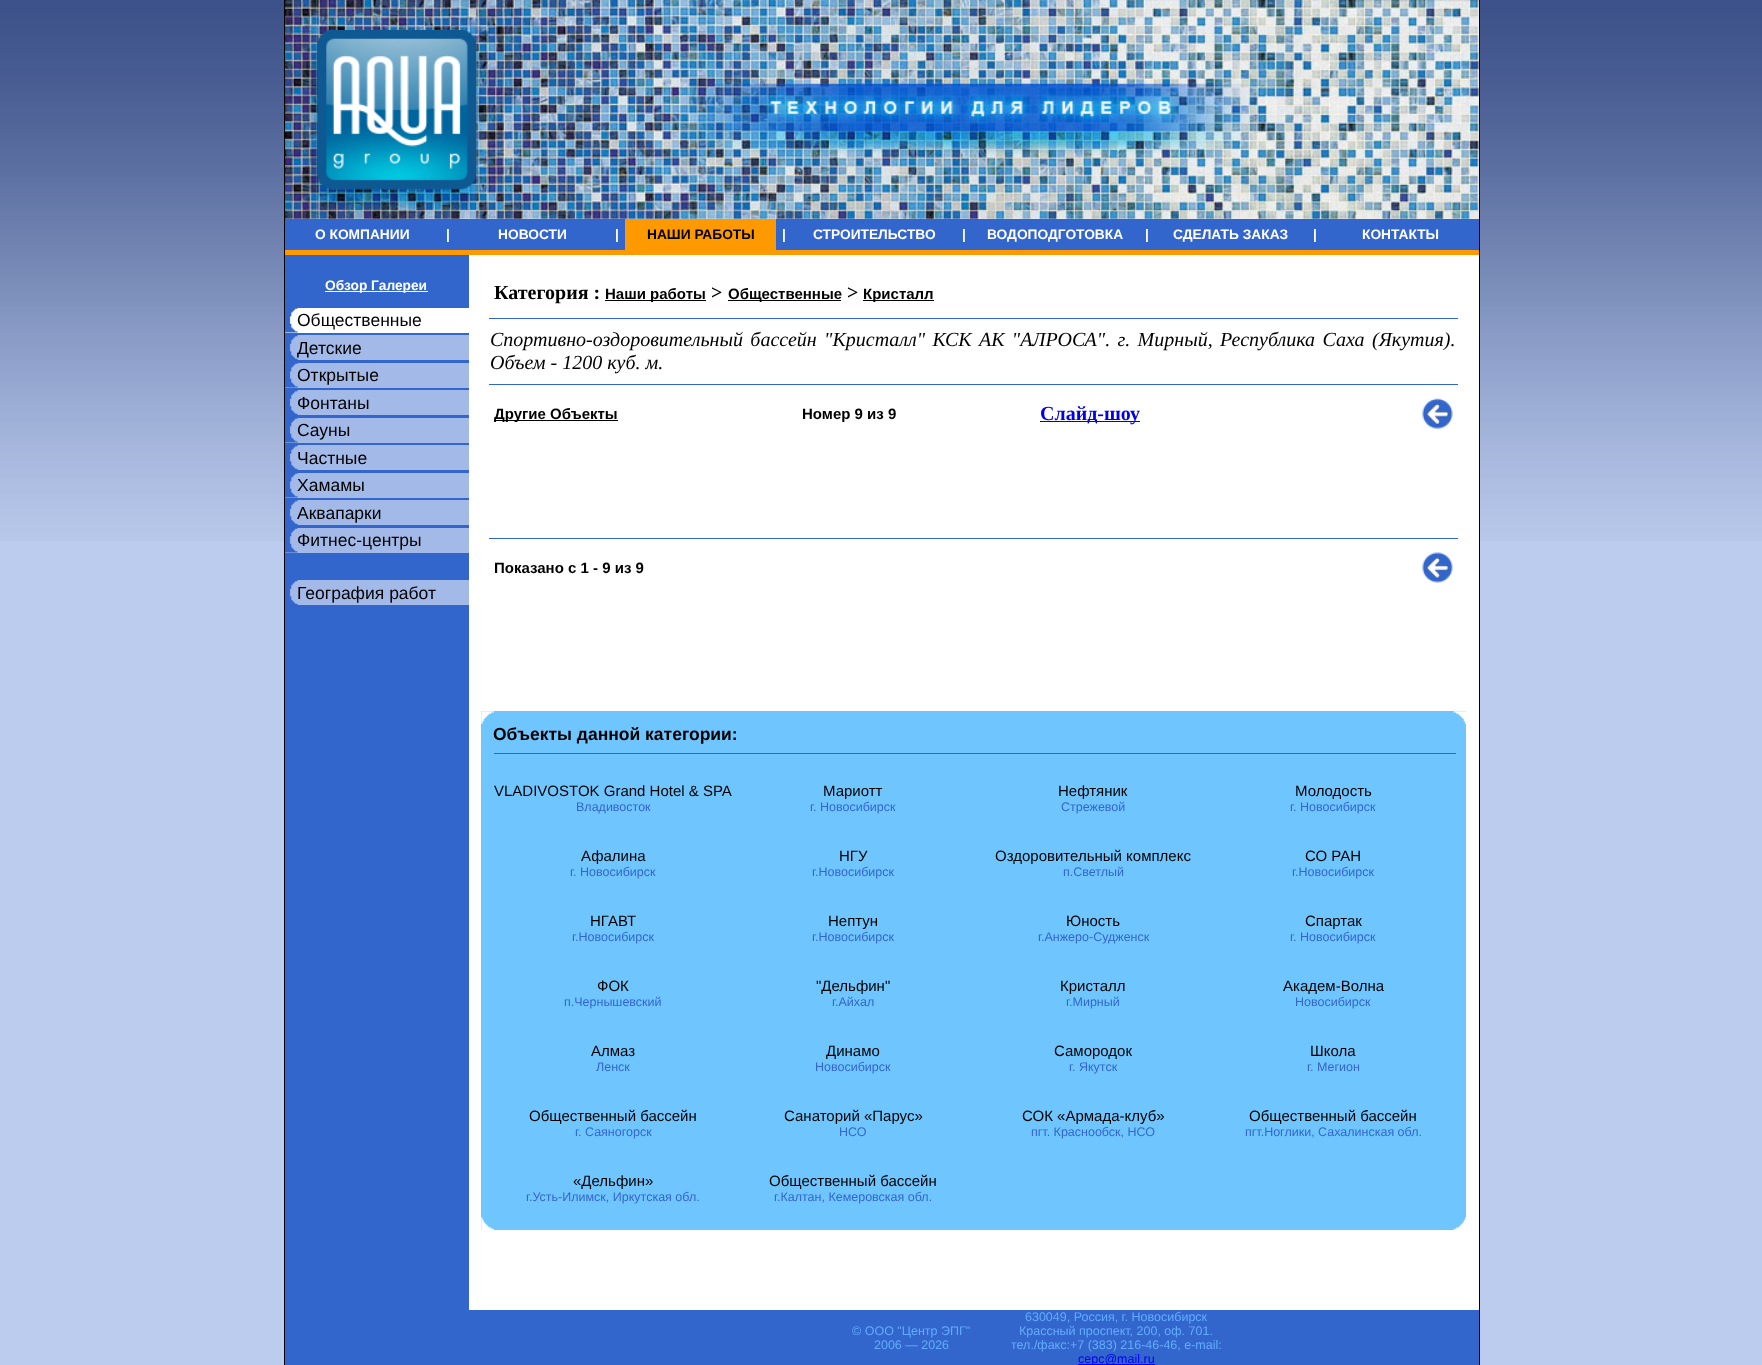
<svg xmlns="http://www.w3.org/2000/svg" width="1762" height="1365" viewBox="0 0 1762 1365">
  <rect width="100%" height="100%" fill="rgb(187,204,238)"/>
  <image x="0" y="0" width="1762" height="541" href="pic1.png"/>
  <rect x="285" y="0" width="1194" height="1310" fill="rgb(255,255,255)"/>
  <rect x="1479" y="0" width="1" height="1365" fill="rgb(0,0,0)"/>
  <rect x="284" y="0" width="1" height="1365" fill="rgb(0,0,0)"/>
  <image x="285" y="0" width="32" height="219" href="pic2.png"/>
  <image x="316" y="0" width="161" height="30" href="pic3.png"/>
  <image x="316" y="30" width="161" height="160" href="pic4.png"/>
  <image x="316" y="190" width="161" height="29" href="pic5.png"/>
  <image x="476" y="0" width="1003" height="219" href="pic6.png"/>
  <rect x="285" y="219" width="1194" height="31" fill="rgb(51,102,204)"/>
  <g font-family="Liberation Sans" font-size="13.75" font-weight="bold" fill="rgb(255,255,255)">
    <text x="315" y="239">О КОМПАНИИ</text>
    <text x="446" y="239">|</text>
    <text x="498" y="239">НОВОСТИ</text>
    <text x="615" y="239">|</text>
  </g>
  <rect x="625" y="219" width="151" height="31" fill="rgb(255,153,0)"/>
  <text x="647" y="239" font-family="Liberation Sans" font-size="13.75" font-weight="bold" fill="rgb(0,0,0)">НАШИ РАБОТЫ</text>
  <g font-family="Liberation Sans" font-size="13.75" font-weight="bold" fill="rgb(255,255,255)">
    <text x="782" y="239">|</text>
    <text x="813" y="239">СТРОИТЕЛЬСТВО</text>
    <text x="962" y="239">|</text>
    <text x="987" y="239">ВОДОПОДГОТОВКА</text>
    <text x="1145" y="239">|</text>
    <text x="1173" y="239">СДЕЛАТЬ ЗАКАЗ</text>
    <text x="1313" y="239">|</text>
    <text x="1362" y="239">КОНТАКТЫ</text>
  </g>
  <rect x="285" y="250" width="1194" height="5" fill="rgb(255,153,0)"/>
  <rect x="285" y="255" width="184" height="1055" fill="rgb(51,102,204)"/>
  <rect x="325" y="291" width="103" height="1" fill="rgb(255,255,255)"/>
  <text x="325" y="290" font-family="Liberation Sans" font-size="13.75" font-weight="bold" fill="rgb(255,255,255)">Обзор Галереи</text>
  <rect x="285" y="308" width="184" height="25" fill="rgb(255,255,255)"/>
  <image x="285" y="308" width="13" height="25" href="pic7.png"/>
  <text x="297" y="326" font-family="Liberation Sans" font-size="17.5" fill="rgb(0,0,0)">Общественные</text>
  <rect x="289" y="335" width="180" height="25" fill="rgb(163,186,232)"/>
  <image x="285" y="335" width="13" height="25" href="pic8.png"/>
  <text x="297" y="354" font-family="Liberation Sans" font-size="17.5" fill="rgb(0,0,0)">Детские</text>
  <rect x="285" y="363" width="184" height="25" fill="rgb(163,186,232)"/>
  <image x="285" y="363" width="13" height="25" href="pic9.png"/>
  <text x="297" y="381" font-family="Liberation Sans" font-size="17.5" fill="rgb(0,0,0)">Открытые</text>
  <rect x="289" y="390" width="180" height="25" fill="rgb(163,186,232)"/>
  <image x="285" y="390" width="13" height="25" href="pic8.png"/>
  <text x="297" y="409" font-family="Liberation Sans" font-size="17.5" fill="rgb(0,0,0)">Фонтаны</text>
  <rect x="285" y="418" width="184" height="25" fill="rgb(163,186,232)"/>
  <image x="285" y="418" width="13" height="25" href="pic9.png"/>
  <text x="297" y="436" font-family="Liberation Sans" font-size="17.5" fill="rgb(0,0,0)">Сауны</text>
  <rect x="289" y="445" width="180" height="25" fill="rgb(163,186,232)"/>
  <image x="285" y="445" width="13" height="25" href="pic8.png"/>
  <text x="297" y="464" font-family="Liberation Sans" font-size="17.5" fill="rgb(0,0,0)">Частные</text>
  <rect x="285" y="473" width="184" height="25" fill="rgb(163,186,232)"/>
  <image x="285" y="473" width="13" height="25" href="pic9.png"/>
  <text x="297" y="491" font-family="Liberation Sans" font-size="17.5" fill="rgb(0,0,0)">Хамамы</text>
  <rect x="289" y="500" width="180" height="25" fill="rgb(163,186,232)"/>
  <image x="285" y="500" width="13" height="25" href="pic8.png"/>
  <text x="297" y="519" font-family="Liberation Sans" font-size="17.5" fill="rgb(0,0,0)">Аквапарки</text>
  <rect x="285" y="528" width="184" height="25" fill="rgb(163,186,232)"/>
  <image x="285" y="528" width="13" height="25" href="pic9.png"/>
  <text x="297" y="546" font-family="Liberation Sans" font-size="17.5" fill="rgb(0,0,0)">Фитнес-центры</text>
  <rect x="289" y="580" width="180" height="25" fill="rgb(163,186,232)"/>
  <image x="285" y="580" width="13" height="25" href="pic10.png"/>
  <text x="297" y="599" font-family="Liberation Sans" font-size="17.5" fill="rgb(0,0,0)">География работ</text>
  <text x="494" y="299" font-family="Liberation Serif" font-size="20" font-weight="bold" fill="rgb(0,0,0)">Категория :</text>
  <rect x="605" y="300" width="101" height="1" fill="rgb(0,0,0)"/>
  <text x="605" y="299" font-family="Liberation Sans" font-size="15" font-weight="bold" fill="rgb(0,0,0)">Наши работы</text>
  <text x="711" y="299" font-family="Liberation Serif" font-size="20" font-weight="bold" fill="rgb(0,0,0)">&gt;</text>
  <rect x="728" y="300" width="113" height="1" fill="rgb(0,0,0)"/>
  <text x="728" y="299" font-family="Liberation Sans" font-size="15" font-weight="bold" fill="rgb(0,0,0)">Общественные</text>
  <text x="847" y="299" font-family="Liberation Serif" font-size="20" font-weight="bold" fill="rgb(0,0,0)">&gt;</text>
  <rect x="863" y="300" width="71" height="1" fill="rgb(0,0,0)"/>
  <text x="863" y="299" font-family="Liberation Sans" font-size="15" font-weight="bold" fill="rgb(0,0,0)">Кристалл</text>
  <rect x="489" y="318" width="969" height="1" fill="rgb(51,102,204)"/>
  <g font-family="Liberation Serif" font-size="20" font-style="italic" fill="rgb(0,0,0)">
    <text>
      <tspan x="490" y="346" word-spacing="2.4">Спортивно-оздоровительный бассейн "Кристалл" КСК АК "АЛРОСА". г. Мирный, Республика Саха (Якутия).</tspan>
      <tspan x="490" y="369">Объем - 1200 куб. м.</tspan>
    </text>
  </g>
  <rect x="489" y="384" width="969" height="1" fill="rgb(51,102,204)"/>
  <rect x="494" y="420" width="124" height="1" fill="rgb(0,0,0)"/>
  <g font-family="Liberation Sans" font-size="15" font-weight="bold" fill="rgb(0,0,0)">
    <text x="494" y="419">Другие Объекты</text>
    <text x="802" y="419">Номер 9 из 9</text>
  </g>
  <rect x="1040" y="421" width="100" height="1" fill="rgb(0,0,238)"/>
  <text x="1040" y="420" font-family="Liberation Serif" font-size="20" font-weight="bold" fill="rgb(0,0,238)">Слайд-шоу</text>
  <image x="1422" y="398" width="31" height="31" href="pic11.png"/>
  <rect x="489" y="538" width="969" height="1" fill="rgb(51,102,204)"/>
  <text x="494" y="573" font-family="Liberation Sans" font-size="15" font-weight="bold" fill="rgb(0,0,0)">Показано с 1 - 9 из 9</text>
  <image x="1422" y="552" width="31" height="31" href="pic12.png"/>
  <rect x="481" y="711" width="985" height="519" fill="rgb(111,198,255)"/>
  <image x="481" y="711" width="13" height="13" href="pic13.png"/>
  <image x="1453" y="711" width="13" height="13" href="pic14.png"/>
  <text x="493" y="740" font-family="Liberation Sans" font-size="17.5" font-weight="bold" fill="rgb(0,0,0)">Объекты данной категории:</text>
  <rect x="494" y="753" width="962" height="1" fill="rgb(51,102,204)"/>
  <text x="494" y="796" font-family="Liberation Sans" font-size="15" fill="rgb(0,0,0)">VLADIVOSTOK Grand Hotel &amp; SPA</text>
  <text x="576" y="811" font-family="Liberation Sans" font-size="12.5" fill="rgb(51,102,204)">Владивосток</text>
  <text x="823" y="796" font-family="Liberation Sans" font-size="15" fill="rgb(0,0,0)">Мариотт</text>
  <text x="810" y="811" font-family="Liberation Sans" font-size="12.5" fill="rgb(51,102,204)">г. Новосибирск</text>
  <text x="1058" y="796" font-family="Liberation Sans" font-size="15" fill="rgb(0,0,0)">Нефтяник</text>
  <text x="1061" y="811" font-family="Liberation Sans" font-size="12.5" fill="rgb(51,102,204)">Стрежевой</text>
  <text x="1295" y="796" font-family="Liberation Sans" font-size="15" fill="rgb(0,0,0)">Молодость</text>
  <text x="1290" y="811" font-family="Liberation Sans" font-size="12.5" fill="rgb(51,102,204)">г. Новосибирск</text>
  <text x="581" y="861" font-family="Liberation Sans" font-size="15" fill="rgb(0,0,0)">Афалина</text>
  <text x="570" y="876" font-family="Liberation Sans" font-size="12.5" fill="rgb(51,102,204)">г. Новосибирск</text>
  <text x="839" y="861" font-family="Liberation Sans" font-size="15" fill="rgb(0,0,0)">НГУ</text>
  <text x="812" y="876" font-family="Liberation Sans" font-size="12.5" fill="rgb(51,102,204)">г.Новосибирск</text>
  <text x="995" y="861" font-family="Liberation Sans" font-size="15" fill="rgb(0,0,0)">Оздоровительный комплекс</text>
  <text x="1063" y="876" font-family="Liberation Sans" font-size="12.5" fill="rgb(51,102,204)">п.Светлый</text>
  <text x="1305" y="861" font-family="Liberation Sans" font-size="15" fill="rgb(0,0,0)">СО РАН</text>
  <text x="1292" y="876" font-family="Liberation Sans" font-size="12.5" fill="rgb(51,102,204)">г.Новосибирск</text>
  <text x="590" y="926" font-family="Liberation Sans" font-size="15" fill="rgb(0,0,0)">НГАВТ</text>
  <text x="572" y="941" font-family="Liberation Sans" font-size="12.5" fill="rgb(51,102,204)">г.Новосибирск</text>
  <text x="828" y="926" font-family="Liberation Sans" font-size="15" fill="rgb(0,0,0)">Нептун</text>
  <text x="812" y="941" font-family="Liberation Sans" font-size="12.5" fill="rgb(51,102,204)">г.Новосибирск</text>
  <text x="1066" y="926" font-family="Liberation Sans" font-size="15" fill="rgb(0,0,0)">Юность</text>
  <text x="1038" y="941" font-family="Liberation Sans" font-size="12.5" fill="rgb(51,102,204)">г.Анжеро-Судженск</text>
  <text x="1305" y="926" font-family="Liberation Sans" font-size="15" fill="rgb(0,0,0)">Спартак</text>
  <text x="1290" y="941" font-family="Liberation Sans" font-size="12.5" fill="rgb(51,102,204)">г. Новосибирск</text>
  <text x="597" y="991" font-family="Liberation Sans" font-size="15" fill="rgb(0,0,0)">ФОК</text>
  <text x="564" y="1006" font-family="Liberation Sans" font-size="12.5" fill="rgb(51,102,204)">п.Чернышевский</text>
  <text x="816" y="991" font-family="Liberation Sans" font-size="15" fill="rgb(0,0,0)">"Дельфин"</text>
  <text x="832" y="1006" font-family="Liberation Sans" font-size="12.5" fill="rgb(51,102,204)">г.Айхал</text>
  <text x="1060" y="991" font-family="Liberation Sans" font-size="15" fill="rgb(0,0,0)">Кристалл</text>
  <text x="1066" y="1006" font-family="Liberation Sans" font-size="12.5" fill="rgb(51,102,204)">г.Мирный</text>
  <text x="1283" y="991" font-family="Liberation Sans" font-size="15" fill="rgb(0,0,0)">Академ-Волна</text>
  <text x="1295" y="1006" font-family="Liberation Sans" font-size="12.5" fill="rgb(51,102,204)">Новосибирск</text>
  <text x="591" y="1056" font-family="Liberation Sans" font-size="15" fill="rgb(0,0,0)">Алмаз</text>
  <text x="596" y="1071" font-family="Liberation Sans" font-size="12.5" fill="rgb(51,102,204)">Ленск</text>
  <text x="826" y="1056" font-family="Liberation Sans" font-size="15" fill="rgb(0,0,0)">Динамо</text>
  <text x="815" y="1071" font-family="Liberation Sans" font-size="12.5" fill="rgb(51,102,204)">Новосибирск</text>
  <text x="1054" y="1056" font-family="Liberation Sans" font-size="15" fill="rgb(0,0,0)">Самородок</text>
  <text x="1069" y="1071" font-family="Liberation Sans" font-size="12.5" fill="rgb(51,102,204)">г. Якутск</text>
  <text x="1310" y="1056" font-family="Liberation Sans" font-size="15" fill="rgb(0,0,0)">Школа</text>
  <text x="1307" y="1071" font-family="Liberation Sans" font-size="12.5" fill="rgb(51,102,204)">г. Мегион</text>
  <text x="529" y="1121" font-family="Liberation Sans" font-size="15" fill="rgb(0,0,0)">Общественный бассейн</text>
  <text x="575" y="1136" font-family="Liberation Sans" font-size="12.5" fill="rgb(51,102,204)">г. Саяногорск</text>
  <text x="784" y="1121" font-family="Liberation Sans" font-size="15" fill="rgb(0,0,0)">Санаторий «Парус»</text>
  <text x="839" y="1136" font-family="Liberation Sans" font-size="12.5" fill="rgb(51,102,204)">НСО</text>
  <text x="1022" y="1121" font-family="Liberation Sans" font-size="15" fill="rgb(0,0,0)">СОК «Армада-клуб»</text>
  <text x="1031" y="1136" font-family="Liberation Sans" font-size="12.5" fill="rgb(51,102,204)">пгт. Краснообск, НСО</text>
  <text x="1249" y="1121" font-family="Liberation Sans" font-size="15" fill="rgb(0,0,0)">Общественный бассейн</text>
  <text x="1245" y="1136" font-family="Liberation Sans" font-size="12.5" fill="rgb(51,102,204)">пгт.Ноглики, Сахалинская обл.</text>
  <text x="573" y="1186" font-family="Liberation Sans" font-size="15" fill="rgb(0,0,0)">«Дельфин»</text>
  <text x="526" y="1201" font-family="Liberation Sans" font-size="12.5" fill="rgb(51,102,204)">г.Усть-Илимск, Иркутская обл.</text>
  <text x="769" y="1186" font-family="Liberation Sans" font-size="15" fill="rgb(0,0,0)">Общественный бассейн</text>
  <text x="774" y="1201" font-family="Liberation Sans" font-size="12.5" fill="rgb(51,102,204)">г.Калтан, Кемеровская обл.</text>
  <image x="481" y="1217" width="13" height="13" href="pic15.png"/>
  <image x="1453" y="1217" width="13" height="13" href="pic16.png"/>
  <rect x="285" y="1310" width="1194" height="55" fill="rgb(51,102,204)"/>
  <g font-family="Liberation Sans" font-size="12.5" fill="rgb(98,172,255)">
    <text x="852" y="1335">© ООО "Центр ЭПГ"</text>
    <text x="874" y="1349">2006 — 2026</text>
    <text x="1025" y="1321">630049, Россия, г. Новосибирск</text>
    <text x="1019" y="1335">Крассный проспект, 200, оф. 701.</text>
    <text x="1011" y="1349">тел./факс:+7 (383) 216-46-46, e-mail:</text>
  </g>
  <rect x="1078" y="1364" width="77" height="1" fill="rgb(0,0,238)"/>
  <text x="1078" y="1363" font-family="Liberation Sans" font-size="12.5" fill="rgb(0,0,238)">cepc@mail.ru</text>
</svg>
